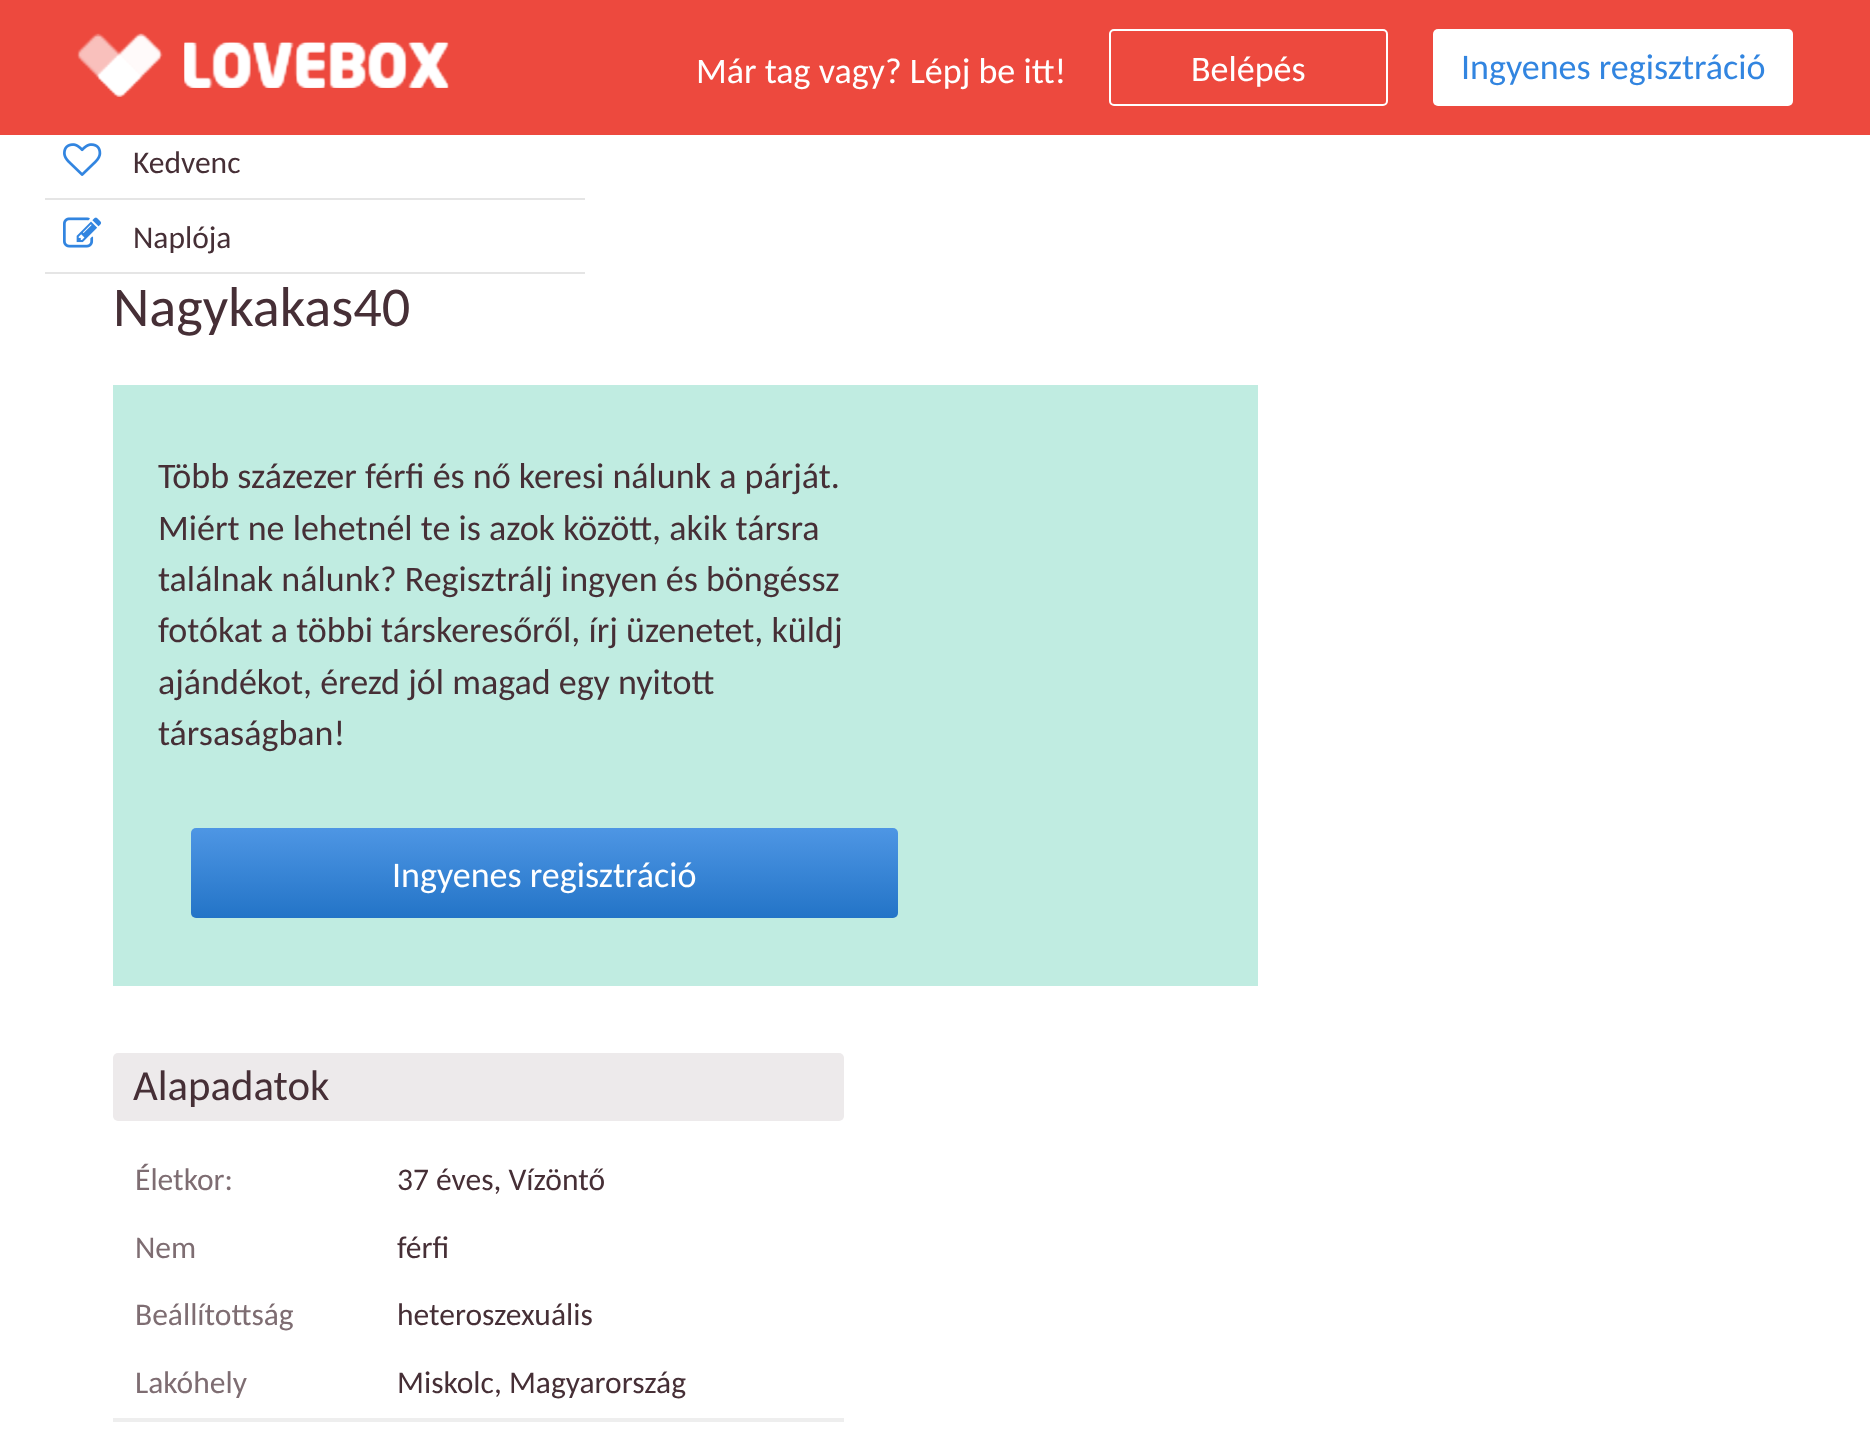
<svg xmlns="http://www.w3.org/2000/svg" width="1870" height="1432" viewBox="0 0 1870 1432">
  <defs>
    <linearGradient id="g1" gradientUnits="userSpaceOnUse" x1="545" y1="828" x2="545" y2="918"><stop offset="0" stop-color="rgb(78,150,228)"/><stop offset="1" stop-color="rgb(35,116,199)"/></linearGradient>
  </defs>
  <rect width="100%" height="100%" fill="rgb(255,255,255)"/>
  <rect x="0" y="0" width="1870" height="135" fill="rgb(237,73,62)"/>
  <image x="77" y="33" width="86" height="64" href="pic1.png"/>
  <image x="77" y="33" width="86" height="64" href="pic2.png"/>
  <image x="184" y="42" width="265" height="46" href="pic3.png"/>
  <image x="184" y="42" width="265" height="46" href="pic4.png"/>
  <text x="696" y="83" font-family="Carlito" font-size="36" fill="rgb(255,255,255)">Már tag vagy? Lépj be itt!</text>
  <rect x="1110" y="30" width="277" height="75" rx="4" fill="none" stroke="rgb(255,255,255)" stroke-width="2"/>
  <text x="1191" y="81" font-family="Carlito" font-size="36" fill="rgb(255,255,255)">Belépés</text>
  <rect x="1433" y="29" width="360" height="77" rx="5" fill="rgb(255,255,255)"/>
  <text x="1461" y="79" font-family="Carlito" font-size="36" fill="rgb(50,133,224)">Ingyenes regisztráció</text>
  <image x="63" y="143" width="39" height="33" href="pic5.png"/>
  <text x="133" y="173" font-family="Carlito" font-size="31.5" fill="rgb(70,47,54)">Kedvenc</text>
  <rect x="45" y="198" width="540" height="2" fill="rgb(229,229,229)"/>
  <rect x="45" y="272" width="540" height="2" fill="rgb(229,229,229)"/>
  <image x="63" y="217" width="39" height="31" href="pic6.png"/>
  <text x="133" y="248" font-family="Carlito" font-size="31.5" fill="rgb(70,47,54)">Naplója</text>
  <text x="113" y="326" font-family="Carlito" font-size="56.25" fill="rgb(70,47,54)">Nagykakas40</text>
  <rect x="113" y="385" width="1145" height="601" fill="rgb(192,236,225)"/>
  <g font-family="Carlito" font-size="36" fill="rgb(70,47,54)">
    <text>
      <tspan x="158" y="488">Több százezer férfi és nő keresi nálunk a párját.</tspan>
      <tspan x="158" y="540">Miért ne lehetnél te is azok között, akik társra</tspan>
      <tspan x="158" y="591">találnak nálunk? Regisztrálj ingyen és böngéssz</tspan>
      <tspan x="158" y="642">fotókat a többi társkeresőről, írj üzenetet, küldj</tspan>
      <tspan x="158" y="694">ajándékot, érezd jól magad egy nyitott</tspan>
      <tspan x="158" y="745">társaságban!</tspan>
    </text>
  </g>
  <rect x="191" y="828" width="707" height="90" rx="5" fill="url(#g1)"/>
  <text x="392" y="887" font-family="Carlito" font-size="36" fill="rgb(255,255,255)">Ingyenes regisztráció</text>
  <rect x="113" y="1053" width="731" height="68" rx="5" fill="rgb(237,234,235)"/>
  <text x="133" y="1100" font-family="Carlito" font-size="42.75" fill="rgb(70,47,54)">Alapadatok</text>
  <text x="135" y="1190" font-family="Carlito" font-size="31.5" fill="rgb(126,109,114)">Életkor:</text>
  <text x="397" y="1190" font-family="Carlito" font-size="31.5" fill="rgb(70,47,54)">37 éves, Vízöntő</text>
  <text x="135" y="1258" font-family="Carlito" font-size="31.5" fill="rgb(126,109,114)">Nem</text>
  <text x="397" y="1258" font-family="Carlito" font-size="31.5" fill="rgb(70,47,54)">férfi</text>
  <text x="135" y="1325" font-family="Carlito" font-size="31.5" fill="rgb(126,109,114)">Beállítottság</text>
  <text x="397" y="1325" font-family="Carlito" font-size="31.5" fill="rgb(70,47,54)">heteroszexuális</text>
  <text x="135" y="1393" font-family="Carlito" font-size="31.5" fill="rgb(126,109,114)">Lakóhely</text>
  <text x="397" y="1393" font-family="Carlito" font-size="31.5" fill="rgb(70,47,54)">Miskolc, Magyarország</text>
  <rect x="113" y="1418" width="731" height="4" fill="rgb(238,238,238)"/>
</svg>
